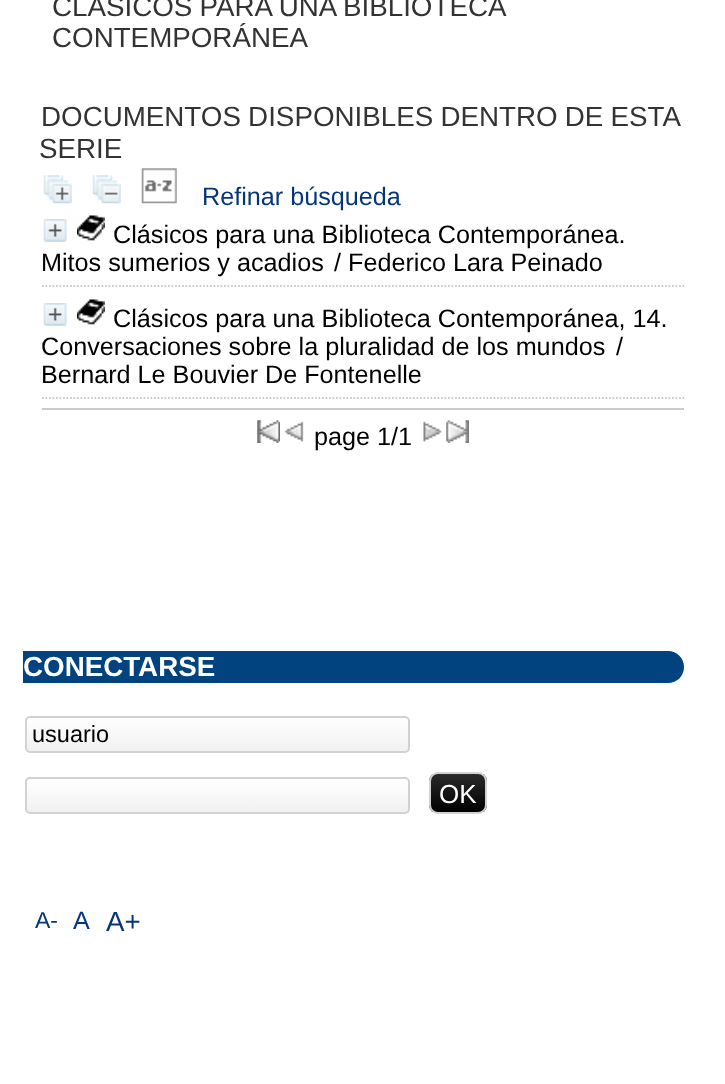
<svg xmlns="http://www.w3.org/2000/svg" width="725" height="1084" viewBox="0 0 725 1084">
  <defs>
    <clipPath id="clip1"><rect x="25" y="716" width="385" height="37" rx="5"/></clipPath>
    <linearGradient id="g1" gradientUnits="userSpaceOnUse" x1="217" y1="718" x2="217" y2="751"><stop offset="0.01" stop-color="rgb(255,255,255)"/><stop offset="1" stop-color="rgb(241,241,241)"/></linearGradient>
    <clipPath id="clip2"><rect x="25" y="777" width="385" height="37" rx="5"/></clipPath>
    <linearGradient id="g2" gradientUnits="userSpaceOnUse" x1="217" y1="779" x2="217" y2="812"><stop offset="0.01" stop-color="rgb(255,255,255)"/><stop offset="1" stop-color="rgb(241,241,241)"/></linearGradient>
    <clipPath id="clip3"><rect x="429" y="772" width="58" height="42" rx="9"/></clipPath>
    <linearGradient id="g3" gradientUnits="userSpaceOnUse" x1="458" y1="774" x2="458" y2="812"><stop offset="0" stop-color="rgb(42,42,42)"/><stop offset="1" stop-color="rgb(0,0,0)"/></linearGradient>
  </defs>
  <rect width="100%" height="100%" fill="rgb(255,255,255)"/>
  <g font-family="Liberation Sans" font-size="27.75" fill="rgb(51,51,51)">
    <text>
      <tspan x="52" y="16" word-spacing="-0.5">CLÁSICOS PARA UNA BIBLIOTECA</tspan>
      <tspan x="52" y="47">CONTEMPORÁNEA</tspan>
    </text>
    <text x="41" y="126" word-spacing="-0.5">DOCUMENTOS DISPONIBLES DENTRO DE ESTA</text>
    <text x="39" y="158">SERIE</text>
  </g>
  <image x="43" y="175" width="29" height="29" href="pic1.png"/>
  <image x="92" y="175" width="29" height="29" href="pic2.png"/>
  <image x="141" y="168" width="36" height="36" href="pic3.png"/>
  <text x="202" y="205" font-family="Liberation Sans" font-size="25.2" fill="rgb(6,54,122)">Refinar búsqueda</text>
  <path d="M42 286H684" fill="none" stroke="rgb(204,204,204)" stroke-width="1.8" stroke-dasharray="1.75 1.75"/>
  <image x="43" y="219" width="24" height="23" href="pic4.png"/>
  <image x="77" y="215" width="28" height="26" href="pic5.png"/>
  <g font-family="Liberation Sans" font-size="25.2" fill="rgb(0,0,0)">
    <text x="113" y="243">Clásicos para una Biblioteca Contemporánea.</text>
    <text x="41" y="271">Mitos sumerios y acadios</text>
    <text x="334" y="271">/ Federico Lara Peinado</text>
  </g>
  <path d="M42 398H684" fill="none" stroke="rgb(204,204,204)" stroke-width="1.8" stroke-dasharray="1.75 1.75"/>
  <image x="43" y="303" width="24" height="23" href="pic4.png"/>
  <image x="77" y="299" width="28" height="26" href="pic5.png"/>
  <g font-family="Liberation Sans" font-size="25.2" fill="rgb(0,0,0)">
    <text x="113" y="327">Clásicos para una Biblioteca Contemporánea, 14.</text>
    <text x="41" y="355">Conversaciones sobre la pluralidad de los mundos</text>
    <text x="616" y="355">/</text>
    <text x="41" y="383">Bernard Le Bouvier De Fontenelle</text>
  </g>
  <rect x="42" y="408" width="642" height="2" fill="rgb(204,204,204)"/>
  <image x="257" y="420" width="23" height="23" href="pic6.png"/>
  <image x="284" y="421" width="20" height="21" href="pic7.png"/>
  <text x="314" y="445" font-family="Liberation Sans" font-size="25.2" fill="rgb(0,0,0)">page 1/1</text>
  <image x="423" y="421" width="19" height="21" href="pic8.png"/>
  <image x="446" y="420" width="23" height="23" href="pic9.png"/>
  <path d="M23 651H668C677 651 684 658 684 667C684 676 677 683 668 683H23Z" fill="rgb(0,67,126)"/>
  <text x="23" y="676" font-family="Liberation Sans" font-size="27.75" font-weight="bold" fill="rgb(255,255,255)">CONECTARSE</text>
  <g clip-path="url(#clip1)">
    <rect x="25" y="718" width="385" height="33" fill="url(#g1)"/>
  </g>
  <rect x="26" y="717" width="383" height="35" rx="4" fill="none" stroke="rgb(210,210,210)" stroke-width="2"/>
  <text x="32" y="742" font-family="Liberation Sans" font-size="23.5" fill="rgb(0,0,0)">usuario</text>
  <g clip-path="url(#clip2)">
    <rect x="25" y="779" width="385" height="33" fill="url(#g2)"/>
  </g>
  <rect x="26" y="778" width="383" height="35" rx="4" fill="none" stroke="rgb(210,210,210)" stroke-width="2"/>
  <g clip-path="url(#clip3)">
    <rect x="429" y="774" width="58" height="38" fill="url(#g3)"/>
  </g>
  <rect x="430" y="773" width="56" height="40" rx="8" fill="none" stroke="rgb(210,210,210)" stroke-width="2"/>
  <text x="439" y="803" font-family="Liberation Sans" font-size="26" fill="rgb(255,255,255)">OK</text>
  <text x="35" y="928" font-family="Liberation Sans" font-size="23" fill="rgb(6,54,122)">A-</text>
  <text x="73" y="929" font-family="Liberation Sans" font-size="25.2" fill="rgb(6,54,122)">A</text>
  <text x="106" y="931" font-family="Liberation Sans" font-size="27.75" fill="rgb(6,54,122)">A+</text>
</svg>
